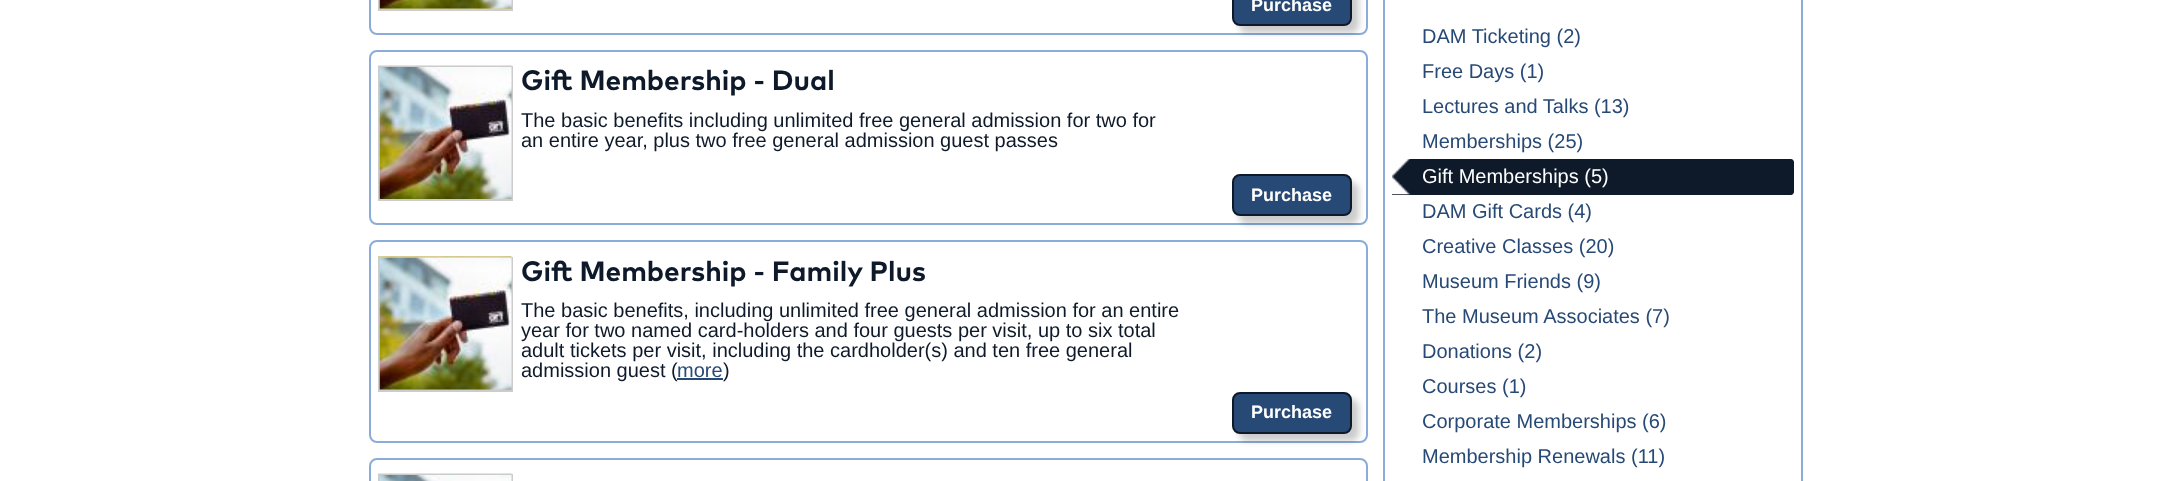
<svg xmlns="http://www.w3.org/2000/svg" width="2171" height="481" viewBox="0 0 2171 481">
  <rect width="100%" height="100%" fill="rgb(255,255,255)"/>
  <rect x="370" y="-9" width="997" height="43" rx="7" fill="none" stroke="rgb(138,172,216)" stroke-width="2"/>
  <image x="380" y="8" width="131" height="1" href="pic1.png"/>
  <rect x="379" y="-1" width="133" height="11" fill="none" stroke="rgb(204,204,204)" stroke-width="2"/>
  <image x="379" y="0" width="133" height="9" href="pic2.png"/>
  <rect x="1239" y="-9" width="120" height="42" rx="8" fill="rgba(0,0,0,0.2)" filter="blur(3px)"/>
  <rect x="1233" y="-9" width="118" height="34" rx="7" fill="rgb(39,73,117)" stroke="rgb(14,26,42)" stroke-width="2"/>
  <text x="1251" y="11" font-family="Liberation Sans" font-size="18" font-weight="bold" fill="rgb(255,255,255)">Purchase</text>
  <rect x="370" y="51" width="997" height="173" rx="7" fill="none" stroke="rgb(138,172,216)" stroke-width="2"/>
  <image x="378" y="65" width="134" height="1" href="pic3.png"/>
  <rect x="379" y="67" width="133" height="133" fill="none" stroke="rgb(204,204,204)" stroke-width="2"/>
  <image x="379" y="67" width="133" height="132" href="pic4.png"/>
  <text x="521" y="90" font-family="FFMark" font-size="28" fill="rgb(14,26,42)">Gift Membership - Dual</text>
  <g font-family="Liberation Sans" font-size="20" fill="rgb(14,26,42)">
    <text>
      <tspan x="521" y="127">The basic benefits including unlimited free general admission for two for</tspan>
      <tspan x="521" y="147">an entire year, plus two free general admission guest passes</tspan>
    </text>
  </g>
  <rect x="1239" y="182" width="120" height="42" rx="8" fill="rgba(0,0,0,0.2)" filter="blur(3px)"/>
  <rect x="1233" y="175" width="118" height="40" rx="7" fill="rgb(39,73,117)" stroke="rgb(14,26,42)" stroke-width="2"/>
  <text x="1251" y="201" font-family="Liberation Sans" font-size="18" font-weight="bold" fill="rgb(255,255,255)">Purchase</text>
  <rect x="370" y="241" width="997" height="201" rx="7" fill="none" stroke="rgb(138,172,216)" stroke-width="2"/>
  <image x="378" y="256" width="134" height="134" href="pic5.png"/>
  <rect x="379" y="258" width="133" height="133" fill="none" stroke="rgb(204,204,204)" stroke-width="2"/>
  <image x="379" y="257" width="133" height="133" href="pic6.png"/>
  <text x="521" y="281" font-family="FFMark" font-size="28" fill="rgb(14,26,42)">Gift Membership - Family Plus</text>
  <g font-family="Liberation Sans" font-size="20" fill="rgb(14,26,42)">
    <text>
      <tspan x="521" y="317">The basic benefits, including unlimited free general admission for an entire</tspan>
      <tspan x="521" y="337">year for two named card-holders and four guests per visit, up to six total</tspan>
      <tspan x="521" y="357">adult tickets per visit, including the cardholder(s) and ten free general</tspan>
      <tspan x="521" y="377">admission guest (</tspan>
    </text>
  </g>
  <text x="677" y="377" font-family="Liberation Sans" font-size="20" fill="rgb(39,73,117)">more</text>
  <rect x="677" y="378" width="46" height="2" fill="rgb(39,73,117)"/>
  <text x="723" y="377" font-family="Liberation Sans" font-size="20" fill="rgb(14,26,42)">)</text>
  <rect x="1239" y="399" width="120" height="42" rx="8" fill="rgba(0,0,0,0.2)" filter="blur(3px)"/>
  <rect x="1233" y="393" width="118" height="40" rx="7" fill="rgb(39,73,117)" stroke="rgb(14,26,42)" stroke-width="2"/>
  <text x="1251" y="418" font-family="Liberation Sans" font-size="18" font-weight="bold" fill="rgb(255,255,255)">Purchase</text>
  <rect x="370" y="459" width="997" height="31" rx="7" fill="none" stroke="rgb(138,172,216)" stroke-width="2"/>
  <image x="378" y="473" width="134" height="1" href="pic3.png"/>
  <rect x="379" y="475" width="133" height="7" fill="none" stroke="rgb(204,204,204)" stroke-width="2"/>
  <image x="379" y="475" width="133" height="6" href="pic7.png"/>
  <rect x="1384" y="-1" width="418" height="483" fill="none" stroke="rgb(138,172,216)" stroke-width="2"/>
  <g font-family="Liberation Sans" font-size="20" fill="rgb(39,73,117)">
    <text>
      <tspan x="1422" y="43">DAM Ticketing (2)</tspan>
      <tspan x="1422" y="78">Free Days (1)</tspan>
      <tspan x="1422" y="113">Lectures and Talks (13)</tspan>
      <tspan x="1422" y="148">Memberships (25)</tspan>
    </text>
  </g>
  <path d="M1392 159H1791C1792.5 159 1794 160.5 1794 162V192C1794 193.5 1792.5 195 1791 195H1392Z" fill="rgb(14,26,42)"/>
  <image x="1392" y="159" width="19" height="36" href="pic8.png"/>
  <text x="1422" y="183" font-family="Liberation Sans" font-size="20" fill="rgb(255,255,255)">Gift Memberships (5)</text>
  <g font-family="Liberation Sans" font-size="20" fill="rgb(39,73,117)">
    <text>
      <tspan x="1422" y="218">DAM Gift Cards (4)</tspan>
      <tspan x="1422" y="253">Creative Classes (20)</tspan>
      <tspan x="1422" y="288">Museum Friends (9)</tspan>
      <tspan x="1422" y="323">The Museum Associates (7)</tspan>
      <tspan x="1422" y="358">Donations (2)</tspan>
      <tspan x="1422" y="393">Courses (1)</tspan>
      <tspan x="1422" y="428">Corporate Memberships (6)</tspan>
      <tspan x="1422" y="463">Membership Renewals (11)</tspan>
    </text>
  </g>
</svg>
